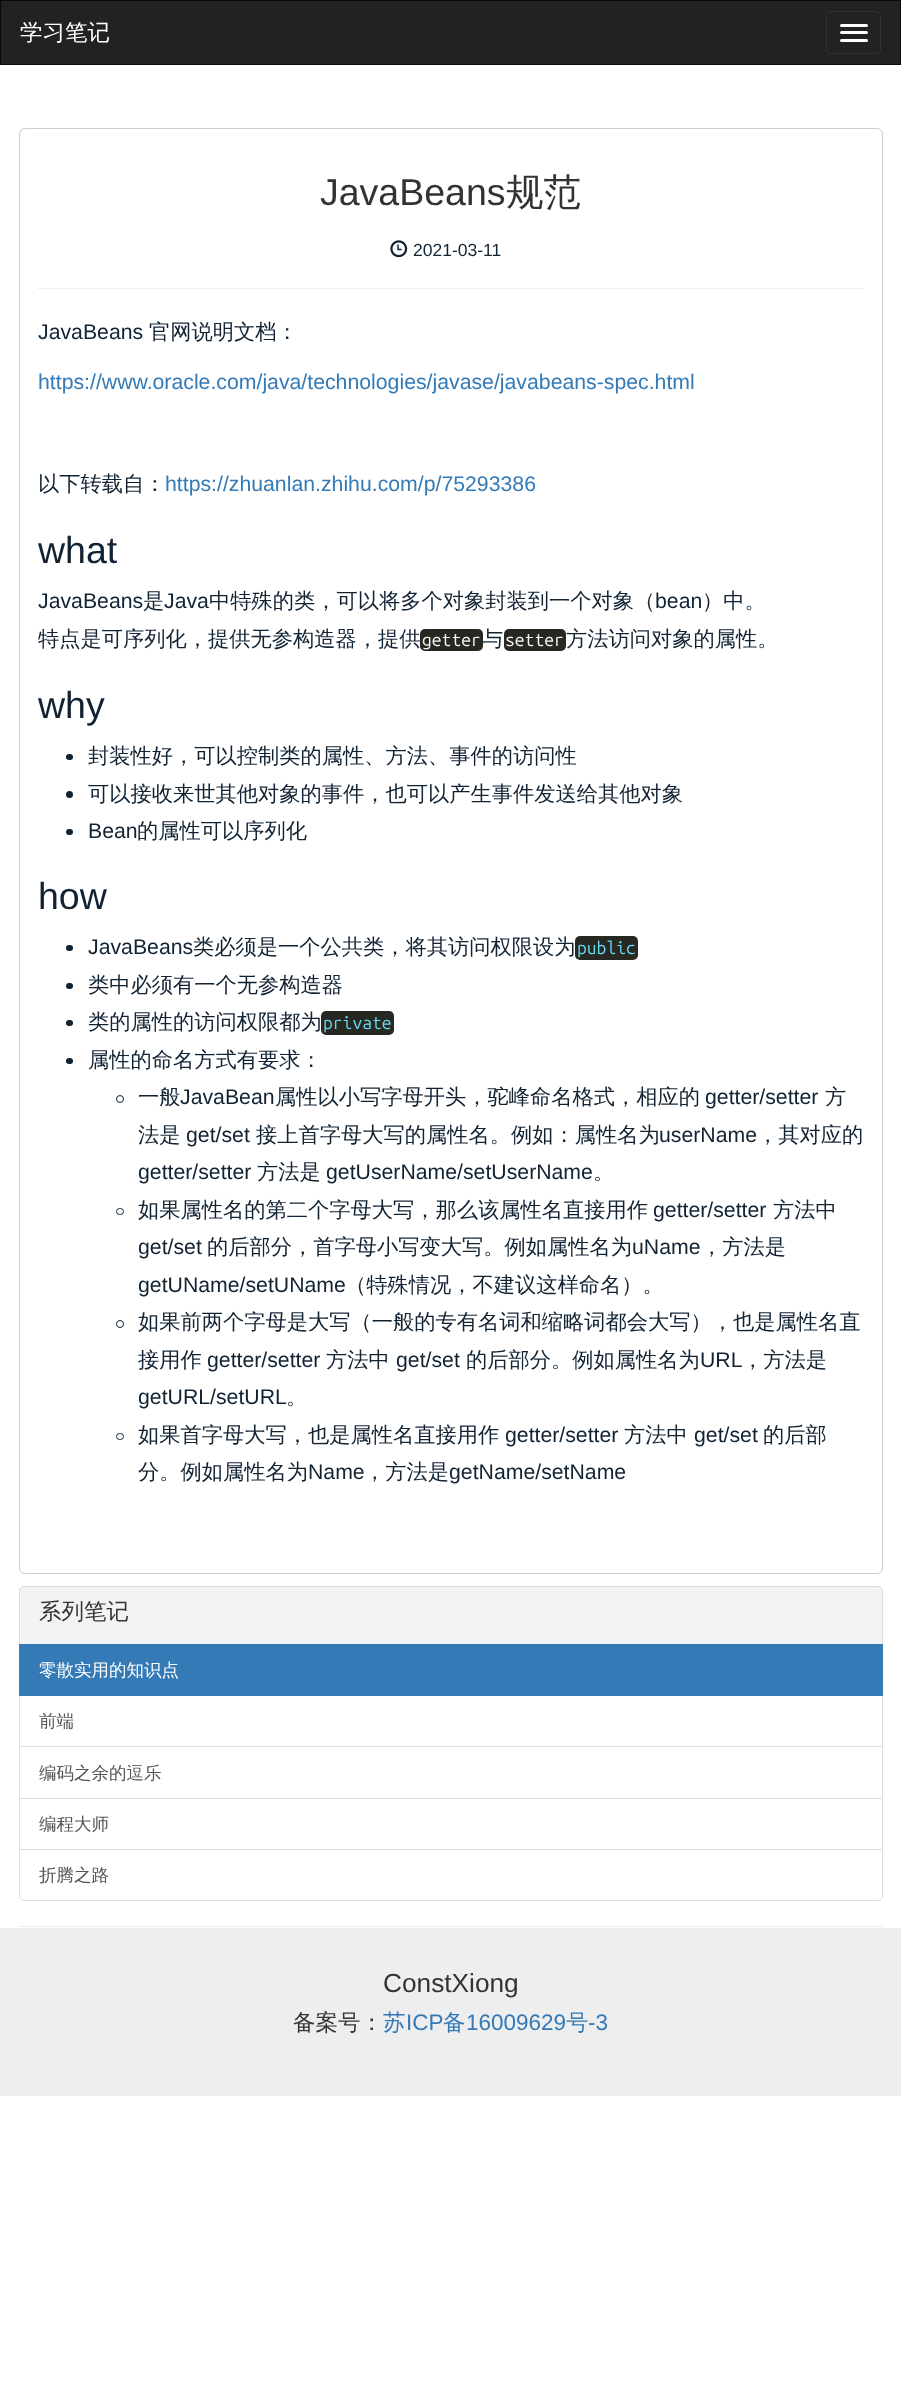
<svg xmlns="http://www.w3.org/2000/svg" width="901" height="2392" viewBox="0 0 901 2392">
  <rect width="100%" height="100%" fill="rgb(255,255,255)"/>
  <rect x="0.5" y="0.5" width="900" height="64" fill="rgb(34,34,34)" stroke="rgb(8,8,8)"/>
  <text x="20" y="40" font-family="WenQuanYi Zen Hei" font-size="22.5" font-weight="500" fill="rgb(255,255,255)">学习笔记</text>
  <rect x="826.5" y="11.5" width="54" height="42" rx="4.5" fill="none" stroke="rgb(51,51,51)"/>
  <rect x="840" y="24" width="28" height="3" rx="1.5" fill="rgb(255,255,255)"/>
  <rect x="840" y="31" width="28" height="3" rx="1.5" fill="rgb(255,255,255)"/>
  <rect x="840" y="39" width="28" height="3" rx="1.5" fill="rgb(255,255,255)"/>
  <rect x="19.5" y="128.5" width="863" height="1445" rx="5.5" fill="none" stroke="rgb(204,204,204)"/>
  <text x="320" y="205" font-family="Liberation Sans" font-size="37.5" fill="rgb(51,51,51)">JavaBeans</text>
  <text x="506" y="205" font-family="WenQuanYi Zen Hei" font-size="37.5" font-weight="500" fill="rgb(51,51,51)">规范</text>
  <image x="390" y="240" width="18" height="18" href="pic1.png"/>
  <text x="413" y="256" font-family="Liberation Sans" font-size="17.5" fill="rgb(17,34,51)">2021-03-11</text>
  <rect x="38" y="288" width="826" height="1" fill="rgb(238,238,238)"/>
  <text x="38" y="339" font-family="Liberation Sans" font-size="21.25" fill="rgb(17,34,51)">JavaBeans</text>
  <text x="149" y="339" font-family="WenQuanYi Zen Hei" font-size="21.25" font-weight="500" fill="rgb(17,34,51)">官网说明文档：</text>
  <text x="38" y="389" font-family="Liberation Sans" font-size="21.25" fill="rgb(51,122,183)">https://www.oracle.com/java/technologies/javase/javabeans-spec.html</text>
  <text x="38" y="491" font-family="WenQuanYi Zen Hei" font-size="21.25" font-weight="500" fill="rgb(17,34,51)">以下转载自：</text>
  <text x="165" y="491" font-family="Liberation Sans" font-size="21.25" fill="rgb(51,122,183)">https://zhuanlan.zhihu.com/p/75293386</text>
  <text x="38" y="563" font-family="Liberation Sans" font-size="37.5" fill="rgb(17,34,51)">what</text>
  <text x="38" y="608" font-family="Liberation Sans" font-size="21.25" fill="rgb(17,34,51)">JavaBeans</text>
  <text x="143" y="608" font-family="WenQuanYi Zen Hei" font-size="21.25" font-weight="500" fill="rgb(17,34,51)">是</text>
  <text x="164" y="608" font-family="Liberation Sans" font-size="21.25" fill="rgb(17,34,51)">Java</text>
  <text x="209" y="608" font-family="WenQuanYi Zen Hei" font-size="21.25" font-weight="500" fill="rgb(17,34,51)">中特殊的类，可以将多个对象封装到一个对象（</text>
  <text x="655" y="608" font-family="Liberation Sans" font-size="21.25" fill="rgb(17,34,51)">bean</text>
  <g font-family="WenQuanYi Zen Hei" font-size="21.25" font-weight="500" fill="rgb(17,34,51)">
    <text x="702" y="608">）中。</text>
    <text x="38" y="646">特点是可序列化，提供无参构造器，提供</text>
  </g>
  <rect x="420" y="629" width="63" height="22" rx="5" fill="rgb(39,40,34)"/>
  <text x="422" y="646" font-family="Ubuntu Mono" font-size="17.5" fill="rgb(248,248,242)">getter</text>
  <text x="482" y="646" font-family="WenQuanYi Zen Hei" font-size="21.25" font-weight="500" fill="rgb(17,34,51)">与</text>
  <rect x="504" y="629" width="62" height="22" rx="5" fill="rgb(39,40,34)"/>
  <text x="505" y="646" font-family="Ubuntu Mono" font-size="17.5" fill="rgb(248,248,242)">setter</text>
  <text x="566" y="646" font-family="WenQuanYi Zen Hei" font-size="21.25" font-weight="500" fill="rgb(17,34,51)">方法访问对象的属性。</text>
  <text x="38" y="718" font-family="Liberation Sans" font-size="37.5" fill="rgb(17,34,51)">why</text>
  <rect x="66" y="754" width="7" height="6" rx="3" fill="rgb(17,34,51)"/>
  <text x="88" y="763" font-family="WenQuanYi Zen Hei" font-size="21.25" font-weight="500" fill="rgb(17,34,51)">封装性好，可以控制类的属性、方法、事件的访问性</text>
  <circle cx="69.5" cy="794.5" r="3.5" fill="rgb(17,34,51)"/>
  <text x="88" y="801" font-family="WenQuanYi Zen Hei" font-size="21.25" font-weight="500" fill="rgb(17,34,51)">可以接收来世其他对象的事件，也可以产生事件发送给其他对象</text>
  <rect x="66" y="829" width="7" height="6" rx="3" fill="rgb(17,34,51)"/>
  <text x="88" y="838" font-family="Liberation Sans" font-size="21.25" fill="rgb(17,34,51)">Bean</text>
  <text x="137" y="838" font-family="WenQuanYi Zen Hei" font-size="21.25" font-weight="500" fill="rgb(17,34,51)">的属性可以序列化</text>
  <text x="38" y="909" font-family="Liberation Sans" font-size="37.5" fill="rgb(17,34,51)">how</text>
  <rect x="66" y="945" width="7" height="6" rx="3" fill="rgb(17,34,51)"/>
  <text x="88" y="954" font-family="Liberation Sans" font-size="21.25" fill="rgb(17,34,51)">JavaBeans</text>
  <text x="193" y="954" font-family="WenQuanYi Zen Hei" font-size="21.25" font-weight="500" fill="rgb(17,34,51)">类必须是一个公共类，将其访问权限设为</text>
  <rect x="575" y="936" width="63" height="24" rx="5" fill="rgb(39,40,34)"/>
  <text x="577" y="954" font-family="Ubuntu Mono" font-size="17.5" fill="rgb(102,217,239)">public</text>
  <rect x="66" y="983" width="7" height="6" rx="3" fill="rgb(17,34,51)"/>
  <text x="88" y="992" font-family="WenQuanYi Zen Hei" font-size="21.25" font-weight="500" fill="rgb(17,34,51)">类中必须有一个无参构造器</text>
  <rect x="66" y="1020" width="7" height="6" rx="3" fill="rgb(17,34,51)"/>
  <text x="88" y="1029" font-family="WenQuanYi Zen Hei" font-size="21.25" font-weight="500" fill="rgb(17,34,51)">类的属性的访问权限都为</text>
  <rect x="321" y="1011" width="73" height="24" rx="5" fill="rgb(39,40,34)"/>
  <text x="323" y="1029" font-family="Ubuntu Mono" font-size="17.5" fill="rgb(102,217,239)">private</text>
  <rect x="66" y="1058" width="7" height="6" rx="3" fill="rgb(17,34,51)"/>
  <text x="88" y="1067" font-family="WenQuanYi Zen Hei" font-size="21.25" font-weight="500" fill="rgb(17,34,51)">属性的命名方式有要求：</text>
  <circle cx="120" cy="1099" r="3.5" fill="none" stroke="rgb(17,34,51)"/>
  <text x="138" y="1104" font-family="WenQuanYi Zen Hei" font-size="21.25" font-weight="500" fill="rgb(17,34,51)">一般</text>
  <text x="180" y="1104" font-family="Liberation Sans" font-size="21.25" fill="rgb(17,34,51)">JavaBean</text>
  <text x="275" y="1104" font-family="WenQuanYi Zen Hei" font-size="21.25" font-weight="500" fill="rgb(17,34,51)">属性以小写字母开头，驼峰命名格式，相应的</text>
  <text x="705" y="1104" font-family="Liberation Sans" font-size="21.25" fill="rgb(17,34,51)">getter/setter</text>
  <g font-family="WenQuanYi Zen Hei" font-size="21.25" font-weight="500" fill="rgb(17,34,51)">
    <text x="825" y="1104">方</text>
    <text x="138" y="1142">法是</text>
  </g>
  <text x="186" y="1142" font-family="Liberation Sans" font-size="21.25" fill="rgb(17,34,51)">get/set</text>
  <text x="256" y="1142" font-family="WenQuanYi Zen Hei" font-size="21.25" font-weight="500" fill="rgb(17,34,51)">接上首字母大写的属性名。例如：属性名为</text>
  <text x="659" y="1142" font-family="Liberation Sans" font-size="21.25" fill="rgb(17,34,51)">userName</text>
  <text x="757" y="1142" font-family="WenQuanYi Zen Hei" font-size="21.25" font-weight="500" fill="rgb(17,34,51)">，其对应的</text>
  <text x="138" y="1179" font-family="Liberation Sans" font-size="21.25" fill="rgb(17,34,51)">getter/setter</text>
  <text x="257" y="1179" font-family="WenQuanYi Zen Hei" font-size="21.25" font-weight="500" fill="rgb(17,34,51)">方法是</text>
  <text x="326" y="1179" font-family="Liberation Sans" font-size="21.25" fill="rgb(17,34,51)">getUserName/setUserName</text>
  <text x="593" y="1179" font-family="WenQuanYi Zen Hei" font-size="21.25" font-weight="500" fill="rgb(17,34,51)">。</text>
  <rect x="116.5" y="1208.5" width="7" height="6" rx="3" fill="none" stroke="rgb(17,34,51)"/>
  <text x="138" y="1217" font-family="WenQuanYi Zen Hei" font-size="21.25" font-weight="500" fill="rgb(17,34,51)">如果属性名的第二个字母大写，那么该属性名直接用作</text>
  <text x="653" y="1217" font-family="Liberation Sans" font-size="21.25" fill="rgb(17,34,51)">getter/setter</text>
  <text x="773" y="1217" font-family="WenQuanYi Zen Hei" font-size="21.25" font-weight="500" fill="rgb(17,34,51)">方法中</text>
  <text x="138" y="1254" font-family="Liberation Sans" font-size="21.25" fill="rgb(17,34,51)">get/set</text>
  <text x="207" y="1254" font-family="WenQuanYi Zen Hei" font-size="21.25" font-weight="500" fill="rgb(17,34,51)">的后部分，首字母小写变大写。例如属性名为</text>
  <text x="632" y="1254" font-family="Liberation Sans" font-size="21.25" fill="rgb(17,34,51)">uName</text>
  <text x="701" y="1254" font-family="WenQuanYi Zen Hei" font-size="21.25" font-weight="500" fill="rgb(17,34,51)">，方法是</text>
  <text x="138" y="1292" font-family="Liberation Sans" font-size="21.25" fill="rgb(17,34,51)">getUName/setUName</text>
  <text x="345" y="1292" font-family="WenQuanYi Zen Hei" font-size="21.25" font-weight="500" fill="rgb(17,34,51)">（特殊情况，不建议这样命名）。</text>
  <circle cx="120" cy="1324" r="3.5" fill="none" stroke="rgb(17,34,51)"/>
  <g font-family="WenQuanYi Zen Hei" font-size="21.25" font-weight="500" fill="rgb(17,34,51)">
    <text>
      <tspan x="138" y="1329">如果前两个字母是大写（一般的专有名词和缩略词都会大写），也是属性名直</tspan>
      <tspan x="138" y="1367">接用作</tspan>
    </text>
  </g>
  <text x="207" y="1367" font-family="Liberation Sans" font-size="21.25" fill="rgb(17,34,51)">getter/setter</text>
  <text x="326" y="1367" font-family="WenQuanYi Zen Hei" font-size="21.25" font-weight="500" fill="rgb(17,34,51)">方法中</text>
  <text x="396" y="1367" font-family="Liberation Sans" font-size="21.25" fill="rgb(17,34,51)">get/set</text>
  <text x="466" y="1367" font-family="WenQuanYi Zen Hei" font-size="21.25" font-weight="500" fill="rgb(17,34,51)">的后部分。例如属性名为</text>
  <text x="700" y="1367" font-family="Liberation Sans" font-size="21.25" fill="rgb(17,34,51)">URL</text>
  <text x="742" y="1367" font-family="WenQuanYi Zen Hei" font-size="21.25" font-weight="500" fill="rgb(17,34,51)">，方法是</text>
  <text x="138" y="1404" font-family="Liberation Sans" font-size="21.25" fill="rgb(17,34,51)">getURL/setURL</text>
  <text x="286" y="1404" font-family="WenQuanYi Zen Hei" font-size="21.25" font-weight="500" fill="rgb(17,34,51)">。</text>
  <rect x="116.5" y="1433.5" width="7" height="6" rx="3" fill="none" stroke="rgb(17,34,51)"/>
  <text x="138" y="1442" font-family="WenQuanYi Zen Hei" font-size="21.25" font-weight="500" fill="rgb(17,34,51)">如果首字母大写，也是属性名直接用作</text>
  <text x="505" y="1442" font-family="Liberation Sans" font-size="21.25" fill="rgb(17,34,51)">getter/setter</text>
  <text x="624" y="1442" font-family="WenQuanYi Zen Hei" font-size="21.25" font-weight="500" fill="rgb(17,34,51)">方法中</text>
  <text x="694" y="1442" font-family="Liberation Sans" font-size="21.25" fill="rgb(17,34,51)">get/set</text>
  <g font-family="WenQuanYi Zen Hei" font-size="21.25" font-weight="500" fill="rgb(17,34,51)">
    <text x="763" y="1442">的后部</text>
    <text x="138" y="1479">分。例如属性名为</text>
  </g>
  <text x="308" y="1479" font-family="Liberation Sans" font-size="21.25" fill="rgb(17,34,51)">Name</text>
  <text x="364" y="1479" font-family="WenQuanYi Zen Hei" font-size="21.25" font-weight="500" fill="rgb(17,34,51)">，方法是</text>
  <text x="449" y="1479" font-family="Liberation Sans" font-size="21.25" fill="rgb(17,34,51)">getName/setName</text>
  <path d="M24 1586.5H878C880.5 1586.5 882.5 1588.5 882.5 1591V1644.5H19.5V1591C19.5 1588.5 21.5 1586.5 24 1586.5Z" fill="rgb(241,243,244)" stroke="rgb(221,221,221)"/>
  <text x="39" y="1619" font-family="WenQuanYi Zen Hei" font-size="22.5" font-weight="500" fill="rgb(51,51,51)">系列笔记</text>
  <rect x="19.5" y="1695.5" width="863" height="52" fill="none" stroke="rgb(221,221,221)"/>
  <rect x="19" y="1644" width="864" height="52" fill="rgb(51,122,183)"/>
  <text x="39" y="1676" font-family="WenQuanYi Zen Hei" font-size="17.5" font-weight="500" fill="rgb(255,255,255)">零散实用的知识点</text>
  <text x="39" y="1727" font-family="WenQuanYi Zen Hei" font-size="17.5" font-weight="500" fill="rgb(85,85,85)">前端</text>
  <rect x="20" y="1747" width="862" height="1" fill="rgb(255,255,255)"/>
  <rect x="19.5" y="1746.5" width="863" height="52" fill="none" stroke="rgb(221,221,221)"/>
  <text x="39" y="1779" font-family="WenQuanYi Zen Hei" font-size="17.5" font-weight="500" fill="rgb(85,85,85)">编码之余的逗乐</text>
  <rect x="19.5" y="1798.5" width="863" height="51" fill="none" stroke="rgb(221,221,221)"/>
  <text x="39" y="1830" font-family="WenQuanYi Zen Hei" font-size="17.5" font-weight="500" fill="rgb(85,85,85)">编程大师</text>
  <path d="M19.5 1849.5H882.5V1896C882.5 1898.5 880.5 1900.5 878 1900.5H24C21.5 1900.5 19.5 1898.5 19.5 1896Z" fill="rgb(255,255,255)" stroke="rgb(221,221,221)"/>
  <text x="39" y="1881" font-family="WenQuanYi Zen Hei" font-size="17.5" font-weight="500" fill="rgb(85,85,85)">折腾之路</text>
  <rect x="19" y="1926" width="864" height="1" fill="rgb(238,238,238)"/>
  <rect x="0" y="1928" width="901" height="168" fill="rgb(238,238,238)"/>
  <text x="383" y="1992" font-family="Liberation Sans" font-size="26.25" fill="rgb(51,51,51)">ConstXiong</text>
  <text x="293" y="2030" font-family="WenQuanYi Zen Hei" font-size="22.5" font-weight="500" fill="rgb(51,51,51)">备案号：</text>
  <text x="383" y="2030" font-family="WenQuanYi Zen Hei" font-size="22.5" font-weight="500" fill="rgb(51,122,183)">苏</text>
  <text x="406" y="2030" font-family="Liberation Sans" font-size="22.5" fill="rgb(51,122,183)">ICP</text>
  <text x="443" y="2030" font-family="WenQuanYi Zen Hei" font-size="22.5" font-weight="500" fill="rgb(51,122,183)">备</text>
  <text x="466" y="2030" font-family="Liberation Sans" font-size="22.5" fill="rgb(51,122,183)">16009629</text>
  <text x="566" y="2030" font-family="WenQuanYi Zen Hei" font-size="22.5" font-weight="500" fill="rgb(51,122,183)">号</text>
  <text x="588" y="2030" font-family="Liberation Sans" font-size="22.5" fill="rgb(51,122,183)">-3</text>
</svg>
